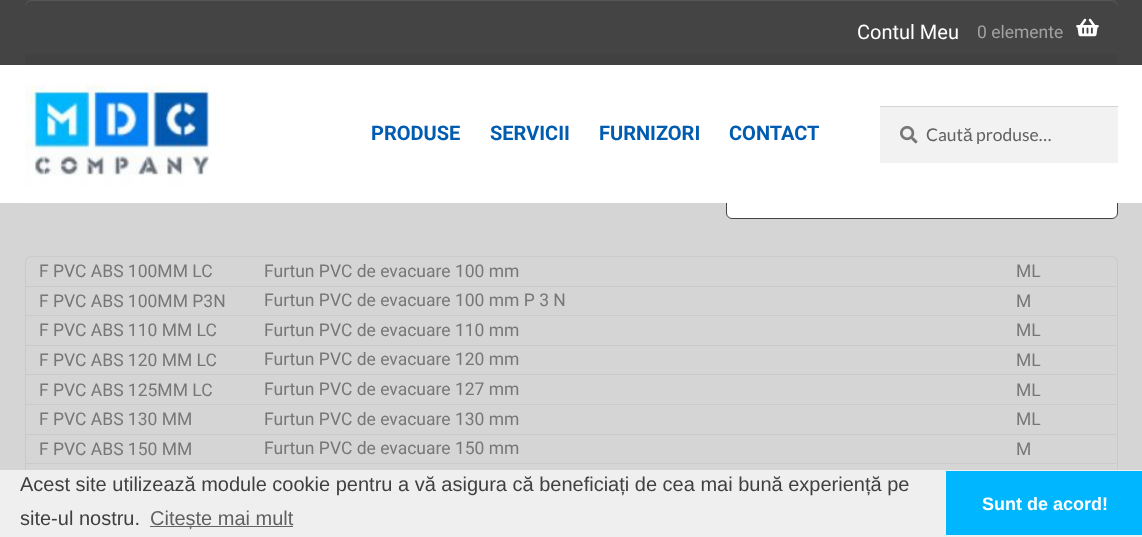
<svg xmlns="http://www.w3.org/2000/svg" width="1142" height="537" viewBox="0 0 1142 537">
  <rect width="100%" height="100%" fill="rgb(213,213,213)"/>
  <rect x="726.5" y="169.5" width="391" height="49" rx="5.5" fill="rgb(255,255,255)" stroke="rgb(68,68,68)"/>
  <rect x="0" y="65" width="1142" height="138" fill="rgb(255,255,255)"/>
  <rect x="0" y="0" width="1142" height="65" fill="rgb(68,68,68)"/>
  <rect x="25" y="54" width="1093" height="11" fill="rgb(65,65,65)"/>
  <path d="M32 1H1111C1115 1 1118 4 1118 8V6C1118 3 1115 0 1112 0H31C28 0 25 3 25 6V8C25 4 28 1 32 1Z" fill="rgb(87,87,87)"/>
  <text x="857" y="39" font-family="Roboto" font-size="20" fill="rgb(255,255,255)">Contul Meu</text>
  <text x="977" y="38" font-family="Roboto" font-size="17.5" fill="rgb(162,162,162)">0 elemente</text>
  <image x="1076" y="18" width="23" height="19" href="pic1.png"/>
  <image x="25" y="84" width="184" height="120" href="pic2.png"/>
  <g font-family="Roboto" font-size="20" font-weight="bold" fill="rgb(0,92,177)">
    <text x="371" y="140">PRODUSE</text>
    <text x="490" y="140">SERVICII</text>
    <text x="599" y="140">FURNIZORI</text>
    <text x="729" y="140">CONTACT</text>
  </g>
  <rect x="880" y="107" width="238" height="56" fill="rgb(242,242,242)"/>
  <image x="900" y="126" width="18" height="18" href="pic3.png"/>
  <rect x="880" y="106" width="238" height="1" fill="rgb(212,212,212)"/>
  <text x="926" y="141" font-family="Lato" font-size="17.5" fill="rgb(97,97,97)">Caut</text>
  <text x="963" y="141" font-family="Liberation Sans" font-size="17.5" fill="rgb(97,97,97)">ă</text>
  <text x="976" y="141" font-family="Lato" font-size="17.5" fill="rgb(97,97,97)">produse…</text>
  <rect x="25.5" y="256.5" width="1092" height="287" rx="5.5" fill="none" stroke="rgb(202,202,202)"/>
  <rect x="26" y="286" width="1090" height="1" fill="rgb(202,202,202)"/>
  <g font-family="Roboto" font-size="17.5" fill="rgb(119,119,119)">
    <text x="39" y="277">F PVC ABS 100MM LC</text>
    <text x="264" y="277">Furtun PVC de evacuare 100 mm</text>
    <text x="1016" y="277">ML</text>
  </g>
  <rect x="26" y="315" width="1090" height="1" fill="rgb(202,202,202)"/>
  <g font-family="Roboto" font-size="17.5" fill="rgb(119,119,119)">
    <text x="39" y="307">F PVC ABS 100MM P3N</text>
    <text x="264" y="306">Furtun PVC de evacuare 100 mm P 3 N</text>
    <text x="1016" y="307">M</text>
  </g>
  <rect x="26" y="345" width="1090" height="1" fill="rgb(202,202,202)"/>
  <g font-family="Roboto" font-size="17.5" fill="rgb(119,119,119)">
    <text x="39" y="336">F PVC ABS 110 MM LC</text>
    <text x="264" y="336">Furtun PVC de evacuare 110 mm</text>
    <text x="1016" y="336">ML</text>
  </g>
  <rect x="26" y="374" width="1090" height="1" fill="rgb(202,202,202)"/>
  <g font-family="Roboto" font-size="17.5" fill="rgb(119,119,119)">
    <text x="39" y="366">F PVC ABS 120 MM LC</text>
    <text x="264" y="365">Furtun PVC de evacuare 120 mm</text>
    <text x="1016" y="366">ML</text>
  </g>
  <rect x="26" y="404" width="1090" height="1" fill="rgb(202,202,202)"/>
  <g font-family="Roboto" font-size="17.5" fill="rgb(119,119,119)">
    <text x="39" y="396">F PVC ABS 125MM LC</text>
    <text x="264" y="395">Furtun PVC de evacuare 127 mm</text>
    <text x="1016" y="396">ML</text>
  </g>
  <rect x="26" y="434" width="1090" height="1" fill="rgb(202,202,202)"/>
  <g font-family="Roboto" font-size="17.5" fill="rgb(119,119,119)">
    <text x="39" y="425">F PVC ABS 130 MM</text>
    <text x="264" y="425">Furtun PVC de evacuare 130 mm</text>
    <text x="1016" y="425">ML</text>
  </g>
  <rect x="26" y="463" width="1090" height="1" fill="rgb(202,202,202)"/>
  <g font-family="Roboto" font-size="17.5" fill="rgb(119,119,119)">
    <text x="39" y="455">F PVC ABS 150 MM</text>
    <text x="264" y="454">Furtun PVC de evacuare 150 mm</text>
    <text x="1016" y="455">M</text>
  </g>
  <rect x="0" y="470" width="1142" height="67" fill="rgb(239,239,239)"/>
  <g font-family="Liberation Sans" font-size="20" fill="rgb(64,64,64)">
    <text>
      <tspan x="20" y="491">Acest site utilizează module cookie pentru a vă asigura că beneficiați de cea mai bună experiență pe</tspan>
      <tspan x="20" y="525">site-ul nostru.</tspan>
    </text>
  </g>
  <rect x="150" y="526" width="143" height="1" fill="rgb(99,99,99)"/>
  <text x="150" y="525" font-family="Liberation Sans" font-size="20" fill="rgb(97,97,97)">Citește mai mult</text>
  <rect x="946" y="471" width="196" height="64" fill="rgb(0,183,255)"/>
  <text x="982" y="510" font-family="Liberation Sans" font-size="18" font-weight="bold" fill="rgb(255,255,255)">Sunt de acord!</text>
</svg>
